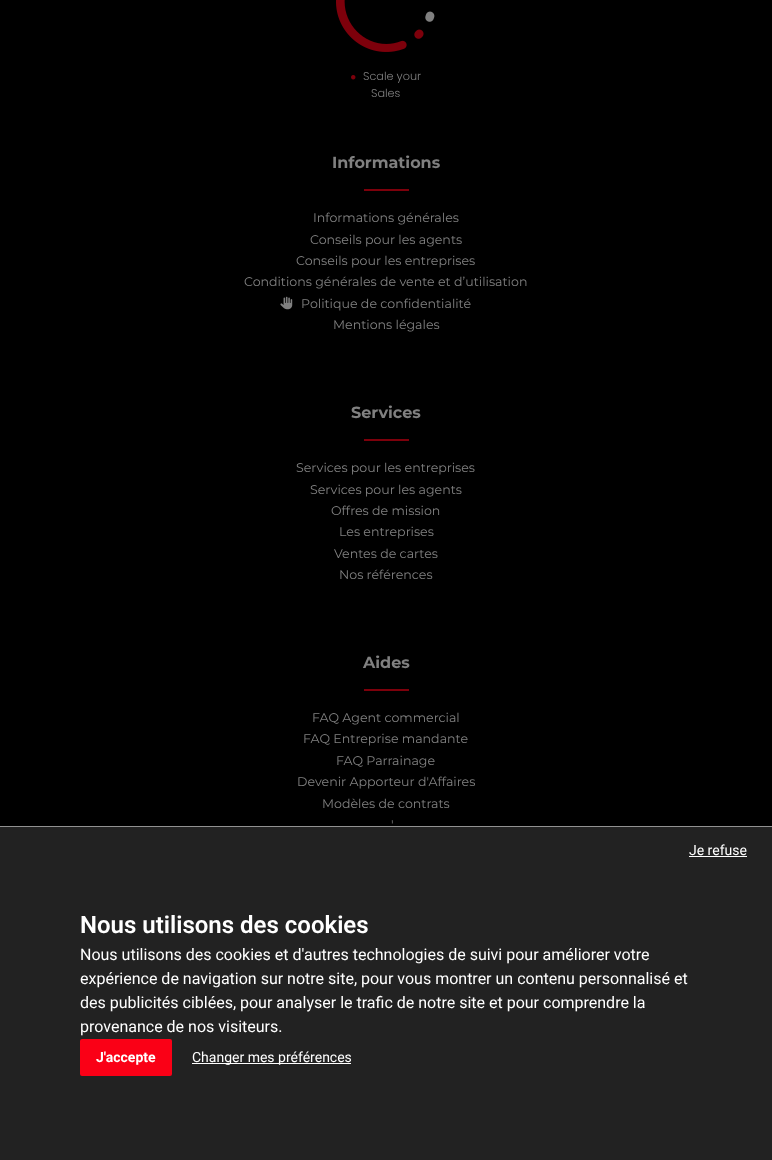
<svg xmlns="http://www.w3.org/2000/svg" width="772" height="1160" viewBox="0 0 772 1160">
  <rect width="100%" height="100%" fill="rgb(0,0,0)"/>
  <image x="336" y="0" width="99" height="52" href="pic1.png"/>
  <image x="351" y="75" width="5" height="5" href="pic2.png"/>
  <g font-family="Poppins" font-size="11.25" font-weight="300" fill="rgb(128,128,128)">
    <text x="363" y="80">Scale your</text>
    <text x="371" y="97">Sales</text>
  </g>
  <text x="332" y="168" font-family="Montserrat" font-size="16" font-weight="bold" fill="rgb(128,128,128)">Informations</text>
  <rect x="364" y="189" width="45" height="2" fill="rgb(125,0,11)"/>
  <g font-family="Montserrat" font-size="12.6" fill="rgb(128,128,128)">
    <text x="313" y="222">Informations générales</text>
    <text x="310" y="244">Conseils pour les agents</text>
    <text x="296" y="265">Conseils pour les entreprises</text>
    <text x="244" y="286">Conditions générales de vente et d’utilisation</text>
  </g>
  <image x="280" y="296" width="13" height="14" href="pic3.png"/>
  <g font-family="Montserrat" font-size="12.6" fill="rgb(128,128,128)">
    <text x="301" y="308">Politique de confidentialité</text>
    <text x="333" y="329">Mentions légales</text>
  </g>
  <text x="351" y="418" font-family="Montserrat" font-size="16" font-weight="bold" fill="rgb(128,128,128)">Services</text>
  <rect x="364" y="439" width="45" height="2" fill="rgb(125,0,11)"/>
  <g font-family="Montserrat" font-size="12.6" fill="rgb(128,128,128)">
    <text x="296" y="472">Services pour les entreprises</text>
    <text x="310" y="494">Services pour les agents</text>
    <text x="331" y="515">Offres de mission</text>
    <text x="339" y="536">Les entreprises</text>
    <text x="334" y="558">Ventes de cartes</text>
    <text x="339" y="579">Nos références</text>
  </g>
  <text x="363" y="668" font-family="Montserrat" font-size="16" font-weight="bold" fill="rgb(128,128,128)">Aides</text>
  <rect x="364" y="689" width="45" height="2" fill="rgb(125,0,11)"/>
  <g font-family="Montserrat" font-size="12.6" fill="rgb(128,128,128)">
    <text x="312" y="722">FAQ Agent commercial</text>
    <text x="303" y="743">FAQ Entreprise mandante</text>
    <text x="336" y="765">FAQ Parrainage</text>
    <text x="297" y="786">Devenir Apporteur d'Affaires</text>
    <text x="322" y="808">Modèles de contrats</text>
    <text x="391" y="829">'</text>
  </g>
  <rect x="0" y="827" width="772" height="333" fill="rgb(34,34,34)"/>
  <rect x="0" y="826" width="772" height="1" fill="rgb(145,145,145)"/>
  <text x="689" y="855" font-family="Roboto" font-size="14" fill="rgb(255,255,255)">Je refuse</text>
  <rect x="689" y="856" width="58" height="1" fill="rgb(255,255,255)"/>
  <rect x="80" y="1039" width="92" height="37" rx="2" fill="rgb(250,0,22)"/>
  <text x="96" y="1062" font-family="Roboto" font-size="14" font-weight="bold" fill="rgb(255,255,255)">J'accepte</text>
  <rect x="192" y="1063" width="159" height="1" fill="rgb(255,255,255)"/>
  <text x="192" y="1062" font-family="Roboto" font-size="14" fill="rgb(255,255,255)">Changer mes préférences</text>
  <text x="80" y="933" font-family="Roboto" font-size="24" font-weight="600" fill="rgb(255,255,255)">Nous utilisons des cookies</text>
  <g font-family="Roboto" font-size="16" fill="rgb(255,255,255)">
    <text>
      <tspan x="80" y="960">Nous utilisons des cookies et d'autres technologies de suivi pour améliorer votre</tspan>
      <tspan x="80" y="984">expérience de navigation sur notre site, pour vous montrer un contenu personnalisé et</tspan>
      <tspan x="80" y="1008">des publicités ciblées, pour analyser le trafic de notre site et pour comprendre la</tspan>
      <tspan x="80" y="1032">provenance de nos visiteurs.</tspan>
    </text>
  </g>
</svg>
